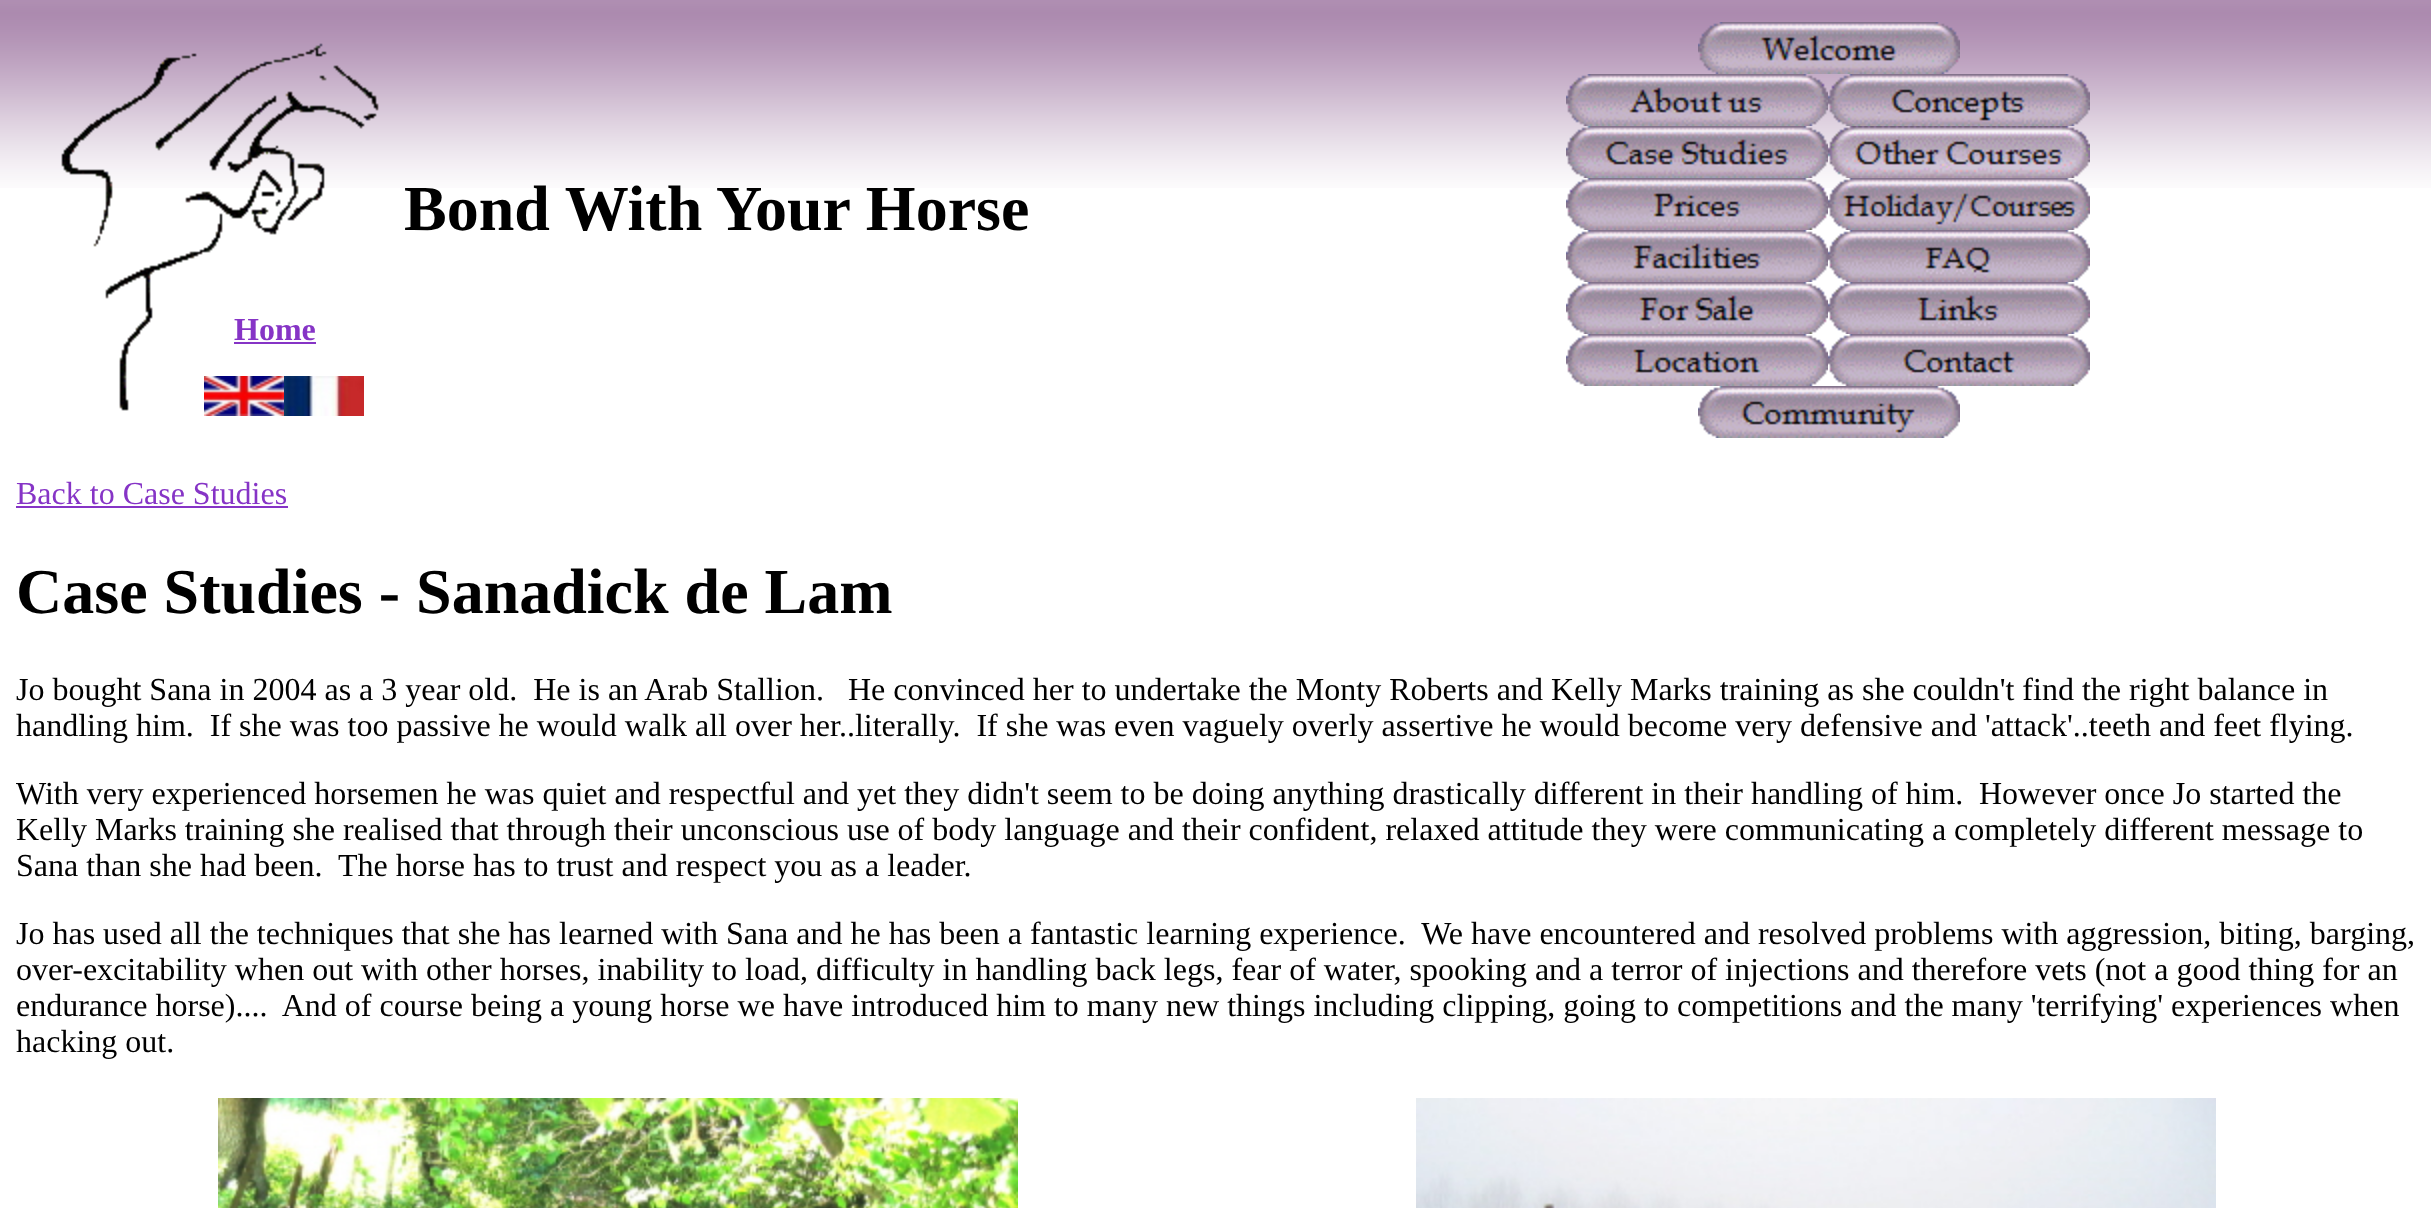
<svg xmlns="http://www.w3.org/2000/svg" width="2431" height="1208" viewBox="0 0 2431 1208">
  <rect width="100%" height="100%" fill="rgb(255,255,255)"/>
  <image x="0" y="0" width="2431" height="188" href="pic1.png"/>
  <image x="61" y="43" width="318" height="368" href="pic2.png"/>
  <text x="404" y="230" font-family="Liberation Serif" font-size="64" font-weight="bold" fill="rgb(0,0,0)">Bond With Your Horse</text>
  <text x="234" y="340" font-family="Liberation Serif" font-size="32" font-weight="bold" fill="rgb(134,52,198)">Home</text>
  <rect x="234" y="342" width="82" height="2" fill="rgb(134,52,198)"/>
  <image x="204" y="376" width="80" height="40" href="pic3.png"/>
  <image x="284" y="376" width="80" height="40" href="pic4.png"/>
  <image x="1698" y="22" width="262" height="52" href="pic5.png"/>
  <image x="1566" y="74" width="262" height="52" href="pic6.png"/>
  <image x="1828" y="74" width="262" height="52" href="pic7.png"/>
  <image x="1566" y="126" width="262" height="52" href="pic8.png"/>
  <image x="1828" y="126" width="262" height="52" href="pic9.png"/>
  <image x="1566" y="178" width="262" height="52" href="pic10.png"/>
  <image x="1828" y="178" width="262" height="52" href="pic11.png"/>
  <image x="1566" y="230" width="262" height="52" href="pic12.png"/>
  <image x="1828" y="230" width="262" height="52" href="pic13.png"/>
  <image x="1566" y="282" width="262" height="52" href="pic14.png"/>
  <image x="1828" y="282" width="262" height="52" href="pic15.png"/>
  <image x="1566" y="334" width="262" height="52" href="pic16.png"/>
  <image x="1828" y="334" width="262" height="52" href="pic17.png"/>
  <image x="1698" y="386" width="262" height="52" href="pic18.png"/>
  <text x="16" y="504" font-family="Liberation Serif" font-size="32" fill="rgb(134,52,198)">Back to Case Studies</text>
  <rect x="16" y="506" width="272" height="2" fill="rgb(134,52,198)"/>
  <text x="16" y="613" font-family="Liberation Serif" font-size="64" font-weight="bold" fill="rgb(0,0,0)">Case Studies - Sanadick de Lam</text>
  <g font-family="Liberation Serif" font-size="32" fill="rgb(0,0,0)">
    <text x="16" y="700" xml:space="preserve">Jo bought Sana in 2004 as a 3 year old.  He is an Arab Stallion.</text>
    <text x="848" y="700">He convinced her to undertake the Monty Roberts and Kelly Marks training as she couldn't find the right balance in</text>
    <text x="16" y="736" xml:space="preserve">handling him.  If she was too passive he would walk all over her..literally.  If she was even vaguely overly assertive he would become very defensive and 'attack'..teeth and feet flying.</text>
    <text x="16" y="804">With very experienced horsemen he was quiet and respectful and yet they didn't seem to be doing anything drastically different in their handling of him.</text>
    <text x="1979" y="804">However once Jo started the</text>
    <text>
      <tspan x="16" y="840">Kelly Marks training she realised that through their unconscious use of body language and their confident, relaxed attitude they were communicating a completely different message to</tspan>
      <tspan x="16" y="876">Sana than she had been.</tspan>
    </text>
    <text x="338" y="876">The horse has to trust and respect you as a leader.</text>
    <text xml:space="preserve"><tspan x="16" y="944">Jo has used all the techniques that she has learned with Sana and he has been a fantastic learning experience.  We have encountered and resolved problems with aggression, biting, barging,</tspan><tspan x="16" y="980">over-excitability when out with other horses, inability to load, difficulty in handling back legs, fear of water, spooking and a terror of injections and therefore vets (not a good thing for an</tspan><tspan x="16" y="1016">endurance horse)....  And of course being a young horse we have introduced him to many new things including clipping, going to competitions and the many 'terrifying' experiences when</tspan><tspan x="16" y="1052">hacking out.</tspan></text>
  </g>
  <image x="218" y="1098" width="800" height="110" href="pic19.png"/>
  <image x="1416" y="1098" width="800" height="110" href="pic20.png"/>
</svg>
